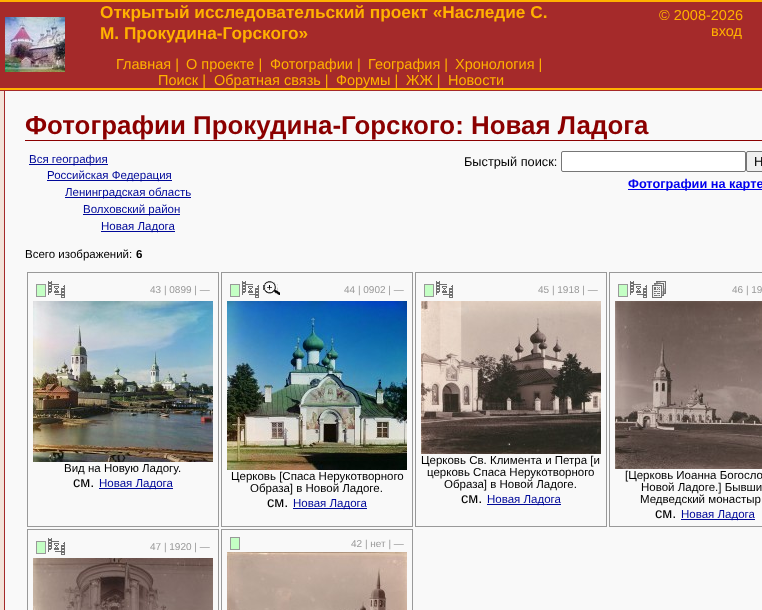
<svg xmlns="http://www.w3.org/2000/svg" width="762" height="610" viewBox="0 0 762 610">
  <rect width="100%" height="100%" fill="rgb(165,42,42)"/>
  <rect x="0" y="0" width="762" height="2" fill="rgb(255,177,0)"/>
  <rect x="0" y="88" width="100" height="2" fill="rgb(255,177,0)"/>
  <image x="5" y="17" width="60" height="55" href="pic1.png"/>
  <g font-family="Liberation Sans" font-size="17.25" font-weight="bold" fill="rgb(255,177,0)">
    <text>
      <tspan x="100" y="18">Открытый исследовательский проект «Наследие С.</tspan>
      <tspan x="100" y="39">М. Прокудина-Горского»</tspan>
    </text>
  </g>
  <rect x="100" y="88" width="662" height="2" fill="rgb(255,177,0)"/>
  <g font-family="Liberation Sans" font-size="14.5" fill="rgb(255,177,0)">
    <text x="659" y="20">© 2008-2026</text>
    <text x="711" y="36">вход</text>
    <text x="116" y="69">Главная |</text>
    <text x="186" y="69">О проекте |</text>
    <text x="270" y="69">Фотографии |</text>
    <text x="368" y="69">География |</text>
    <text x="455" y="69">Хронология |</text>
    <text x="158" y="85">Поиск |</text>
    <text x="214" y="85">Обратная связь |</text>
    <text x="336" y="85">Форумы |</text>
    <text x="406" y="85">ЖЖ |</text>
    <text x="448" y="85">Новости</text>
  </g>
  <rect x="0" y="91" width="4" height="519" fill="rgb(244,227,217)"/>
  <rect x="5" y="91" width="757" height="519" fill="rgb(249,249,249)"/>
  <rect x="25" y="140" width="737" height="1" fill="rgb(139,0,0)"/>
  <text x="25" y="134" font-family="Liberation Sans" font-size="25.9" font-weight="bold" fill="rgb(139,0,0)">Фотографии Прокудина-Горского: Новая Ладога</text>
  <rect x="29" y="164" width="79" height="1" fill="rgb(0,9,153)"/>
  <text x="29" y="163" font-family="Liberation Sans" font-size="11.5" fill="rgb(0,9,153)">Вся география</text>
  <rect x="47" y="180" width="125" height="1" fill="rgb(0,9,153)"/>
  <text x="47" y="179" font-family="Liberation Sans" font-size="11.5" fill="rgb(0,9,153)">Российская Федерация</text>
  <rect x="65" y="197" width="126" height="1" fill="rgb(0,9,153)"/>
  <text x="65" y="196" font-family="Liberation Sans" font-size="11.5" fill="rgb(0,9,153)">Ленинградская область</text>
  <rect x="83" y="214" width="97" height="1" fill="rgb(0,9,153)"/>
  <text x="83" y="213" font-family="Liberation Sans" font-size="11.5" fill="rgb(0,9,153)">Волховский район</text>
  <rect x="101" y="231" width="74" height="1" fill="rgb(0,9,153)"/>
  <text x="101" y="230" font-family="Liberation Sans" font-size="11.5" fill="rgb(0,9,153)">Новая Ладога</text>
  <text x="464" y="166" font-family="Liberation Sans" font-size="12.75" fill="rgb(0,0,0)">Быстрый поиск:</text>
  <rect x="561.5" y="151.5" width="184" height="20" rx="1.5" fill="rgb(255,255,255)" stroke="rgb(118,118,118)"/>
  <rect x="746.5" y="151.5" width="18" height="20" rx="1.5" fill="rgb(239,239,239)" stroke="rgb(118,118,118)"/>
  <text x="754" y="166" font-family="Liberation Sans" font-size="13" fill="rgb(0,0,0)">Н</text>
  <rect x="628" y="189" width="134" height="1" fill="rgb(0,0,238)"/>
  <text x="628" y="188" font-family="Liberation Sans" font-size="12.75" font-weight="bold" fill="rgb(0,0,238)">Фотографии на карте</text>
  <text x="25" y="258" font-family="Liberation Sans" font-size="11.5" fill="rgb(0,0,0)">Всего изображений:</text>
  <text x="136" y="258" font-family="Liberation Sans" font-size="11.5" font-weight="bold" fill="rgb(0,0,0)">6</text>
  <rect x="27.5" y="272.5" width="191" height="254" fill="none" stroke="rgb(153,153,153)"/>
  <rect x="36.5" y="284.5" width="9" height="12" fill="rgb(196,255,196)" stroke="rgb(153,153,153)"/>
  <image x="48" y="281" width="17" height="17" href="pic2.png"/>
  <text x="150" y="293" font-family="Liberation Sans" font-size="10" fill="rgb(153,153,153)">43 | 0899 | —</text>
  <image x="33" y="301" width="180" height="161" href="pic3.png"/>
  <text x="64" y="472" font-family="Liberation Sans" font-size="11.5" fill="rgb(0,0,0)">Вид на Новую Ладогу.</text>
  <text x="73" y="487" font-family="Liberation Sans" font-size="14.5" fill="rgb(0,0,0)">см.</text>
  <rect x="99" y="488" width="74" height="1" fill="rgb(0,9,153)"/>
  <text x="99" y="487" font-family="Liberation Sans" font-size="11.5" fill="rgb(0,9,153)">Новая Ладога</text>
  <rect x="221.5" y="272.5" width="191" height="254" fill="none" stroke="rgb(153,153,153)"/>
  <rect x="230.5" y="284.5" width="9" height="12" fill="rgb(196,255,196)" stroke="rgb(153,153,153)"/>
  <image x="242" y="281" width="17" height="17" href="pic2.png"/>
  <image x="263" y="281" width="17" height="14" href="pic4.png"/>
  <text x="344" y="293" font-family="Liberation Sans" font-size="10" fill="rgb(153,153,153)">44 | 0902 | —</text>
  <image x="227" y="301" width="180" height="169" href="pic5.png"/>
  <g font-family="Liberation Sans" font-size="11.5" fill="rgb(0,0,0)">
    <text x="231" y="480">Церковь [Спаса Нерукотворного</text>
    <text x="250" y="492">Образа] в Новой Ладоге.</text>
  </g>
  <text x="267" y="507" font-family="Liberation Sans" font-size="14.5" fill="rgb(0,0,0)">см.</text>
  <rect x="293" y="508" width="74" height="1" fill="rgb(0,9,153)"/>
  <text x="293" y="507" font-family="Liberation Sans" font-size="11.5" fill="rgb(0,9,153)">Новая Ладога</text>
  <rect x="415.5" y="272.5" width="191" height="254" fill="none" stroke="rgb(153,153,153)"/>
  <rect x="424.5" y="284.5" width="9" height="12" fill="rgb(196,255,196)" stroke="rgb(153,153,153)"/>
  <image x="436" y="281" width="17" height="17" href="pic2.png"/>
  <text x="538" y="293" font-family="Liberation Sans" font-size="10" fill="rgb(153,153,153)">45 | 1918 | —</text>
  <image x="421" y="301" width="180" height="153" href="pic6.png"/>
  <g font-family="Liberation Sans" font-size="11.5" fill="rgb(0,0,0)">
    <text x="421" y="464">Церковь Св. Климента и Петра [и</text>
    <text x="427" y="476">церковь Спаса Нерукотворного</text>
    <text x="444" y="488">Образа] в Новой Ладоге.</text>
  </g>
  <text x="461" y="503" font-family="Liberation Sans" font-size="14.5" fill="rgb(0,0,0)">см.</text>
  <rect x="487" y="504" width="74" height="1" fill="rgb(0,9,153)"/>
  <text x="487" y="503" font-family="Liberation Sans" font-size="11.5" fill="rgb(0,9,153)">Новая Ладога</text>
  <rect x="609.5" y="272.5" width="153" height="254" fill="none" stroke="rgb(153,153,153)"/>
  <rect x="618.5" y="284.5" width="9" height="12" fill="rgb(196,255,196)" stroke="rgb(153,153,153)"/>
  <image x="630" y="281" width="17" height="17" href="pic2.png"/>
  <image x="652" y="281" width="14" height="17" href="pic7.png"/>
  <text x="732" y="293" font-family="Liberation Sans" font-size="10" fill="rgb(153,153,153)">46 | 19</text>
  <image x="615" y="301" width="147" height="168" href="pic8.png"/>
  <g font-family="Liberation Sans" font-size="11.5" fill="rgb(0,0,0)">
    <text x="625" y="479">[Церковь Иоанна Богосло</text>
    <text x="641" y="491">Новой Ладоге.] Бывши</text>
    <text x="640" y="503">Медведский монастыр</text>
  </g>
  <text x="655" y="518" font-family="Liberation Sans" font-size="14.5" fill="rgb(0,0,0)">см.</text>
  <rect x="681" y="519" width="74" height="1" fill="rgb(0,9,153)"/>
  <text x="681" y="518" font-family="Liberation Sans" font-size="11.5" fill="rgb(0,9,153)">Новая Ладога</text>
  <rect x="27.5" y="529.5" width="191" height="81" fill="none" stroke="rgb(153,153,153)"/>
  <rect x="36.5" y="541.5" width="9" height="12" fill="rgb(196,255,196)" stroke="rgb(153,153,153)"/>
  <image x="48" y="538" width="17" height="17" href="pic2.png"/>
  <text x="150" y="550" font-family="Liberation Sans" font-size="10" fill="rgb(153,153,153)">47 | 1920 | —</text>
  <image x="33" y="558" width="180" height="52" href="pic9.png"/>
  <rect x="221.5" y="529.5" width="191" height="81" fill="none" stroke="rgb(153,153,153)"/>
  <rect x="230.5" y="537.5" width="9" height="12" fill="rgb(196,255,196)" stroke="rgb(153,153,153)"/>
  <text x="351" y="547" font-family="Liberation Sans" font-size="10" fill="rgb(153,153,153)">42 | нет | —</text>
  <image x="227" y="552" width="180" height="58" href="pic10.png"/>
</svg>
